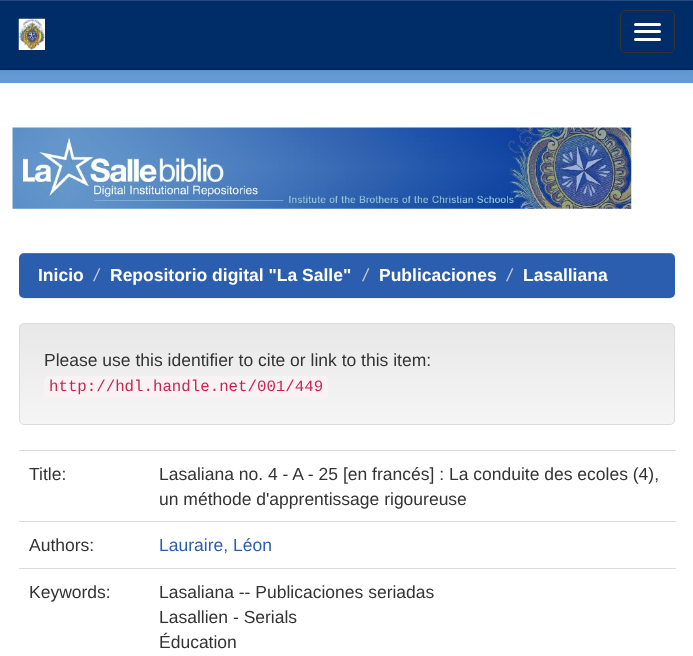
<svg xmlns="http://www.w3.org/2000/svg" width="693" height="656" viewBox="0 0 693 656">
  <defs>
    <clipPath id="clip1"><rect x="19" y="323" width="656" height="102" rx="5"/></clipPath>
    <linearGradient id="g1" gradientUnits="userSpaceOnUse" x1="347" y1="324" x2="347" y2="424"><stop offset="0" stop-color="rgb(232,232,232)"/><stop offset="1" stop-color="rgb(245,245,245)"/></linearGradient>
  </defs>
  <rect width="100%" height="100%" fill="rgb(102,154,212)"/>
  <rect x="0" y="1" width="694" height="70" fill="rgba(0,0,0,0.07)" filter="blur(3px)"/>
  <rect x="0" y="1" width="693" height="68" fill="rgb(0,44,103)"/>
  <rect x="0" y="0" width="693" height="1" fill="rgb(38,76,126)"/>
  <rect x="0" y="69" width="693" height="1" fill="rgb(0,22,52)"/>
  <image x="18" y="18" width="27" height="32" href="pic1.png"/>
  <rect x="620.5" y="10.5" width="54" height="42" rx="4.5" fill="none" stroke="rgb(51,51,51)"/>
  <rect x="634" y="23" width="27" height="3" rx="1.5" fill="rgb(255,255,255)"/>
  <rect x="634" y="30" width="27" height="3" rx="1.5" fill="rgb(255,255,255)"/>
  <rect x="634" y="38" width="27" height="3" rx="1.5" fill="rgb(255,255,255)"/>
  <rect x="0" y="83" width="693" height="573" fill="rgb(255,255,255)"/>
  <image x="12" y="127" width="620" height="82" href="pic2.png"/>
  <rect x="19" y="254" width="656" height="45" rx="5" fill="rgba(0,0,0,0.07)" filter="blur(0.5px)"/>
  <rect x="19" y="253" width="656" height="45" rx="5" fill="rgb(44,94,175)"/>
  <path d="M24 254H670C673 254 675 256 675 259V258C675 255 673 253 670 253H24C21 253 19 255 19 258V259C19 256 21 254 24 254Z" fill="rgba(255,255,255,0.15)"/>
  <text x="38" y="281" font-family="Liberation Sans" font-size="17.5" font-weight="bold" fill="rgb(255,255,255)">Inicio</text>
  <text x="94" y="281" font-family="Liberation Sans" font-size="17.5" font-style="italic" fill="rgb(204,204,204)">/</text>
  <text x="110" y="281" font-family="Liberation Sans" font-size="17.5" font-weight="bold" fill="rgb(255,255,255)">Repositorio digital "La Salle"</text>
  <text x="363" y="281" font-family="Liberation Sans" font-size="17.5" font-style="italic" fill="rgb(204,204,204)">/</text>
  <text x="379" y="281" font-family="Liberation Sans" font-size="17.5" font-weight="bold" fill="rgb(255,255,255)">Publicaciones</text>
  <text x="507" y="281" font-family="Liberation Sans" font-size="17.5" font-style="italic" fill="rgb(204,204,204)">/</text>
  <text x="523" y="281" font-family="Liberation Sans" font-size="17.5" font-weight="bold" fill="rgb(255,255,255)">Lasalliana</text>
  <g clip-path="url(#clip1)">
    <rect x="19" y="324" width="656" height="100" fill="url(#g1)"/>
  </g>
  <rect x="19.5" y="323.5" width="655" height="101" rx="4.5" fill="none" stroke="rgb(220,220,220)"/>
  <text x="44" y="366" font-family="Liberation Sans" font-size="17.5" fill="rgb(51,51,51)">Please use this identifier to cite or link to this item:</text>
  <rect x="44" y="376" width="284" height="23" rx="5" fill="rgb(249,242,244)"/>
  <text x="49" y="391" font-family="Liberation Mono" font-size="15.75" fill="rgb(199,37,78)">http://hdl.handle.net/001/449</text>
  <text x="29" y="480" font-family="Liberation Sans" font-size="17.5" fill="rgb(51,51,51)">Title:</text>
  <rect x="19" y="450" width="657" height="1" fill="rgb(221,221,221)"/>
  <g font-family="Liberation Sans" font-size="17.5" fill="rgb(51,51,51)">
    <text>
      <tspan x="159" y="480">Lasaliana no. 4 - A - 25 [en francés] : La conduite des ecoles (4),</tspan>
      <tspan x="159" y="505">un méthode d'apprentissage rigoureuse</tspan>
    </text>
    <text x="29" y="551">Authors:</text>
  </g>
  <rect x="19" y="521" width="657" height="1" fill="rgb(221,221,221)"/>
  <text x="159" y="551" font-family="Liberation Sans" font-size="17.5" fill="rgb(44,94,175)">Lauraire, Léon</text>
  <text x="29" y="598" font-family="Liberation Sans" font-size="17.5" fill="rgb(51,51,51)">Keywords:</text>
  <rect x="19" y="568" width="657" height="1" fill="rgb(221,221,221)"/>
  <g font-family="Liberation Sans" font-size="17.5" fill="rgb(51,51,51)">
    <text>
      <tspan x="159" y="598">Lasaliana -- Publicaciones seriadas</tspan>
      <tspan x="159" y="623">Lasallien - Serials</tspan>
      <tspan x="159" y="648">Éducation</tspan>
    </text>
  </g>
</svg>
